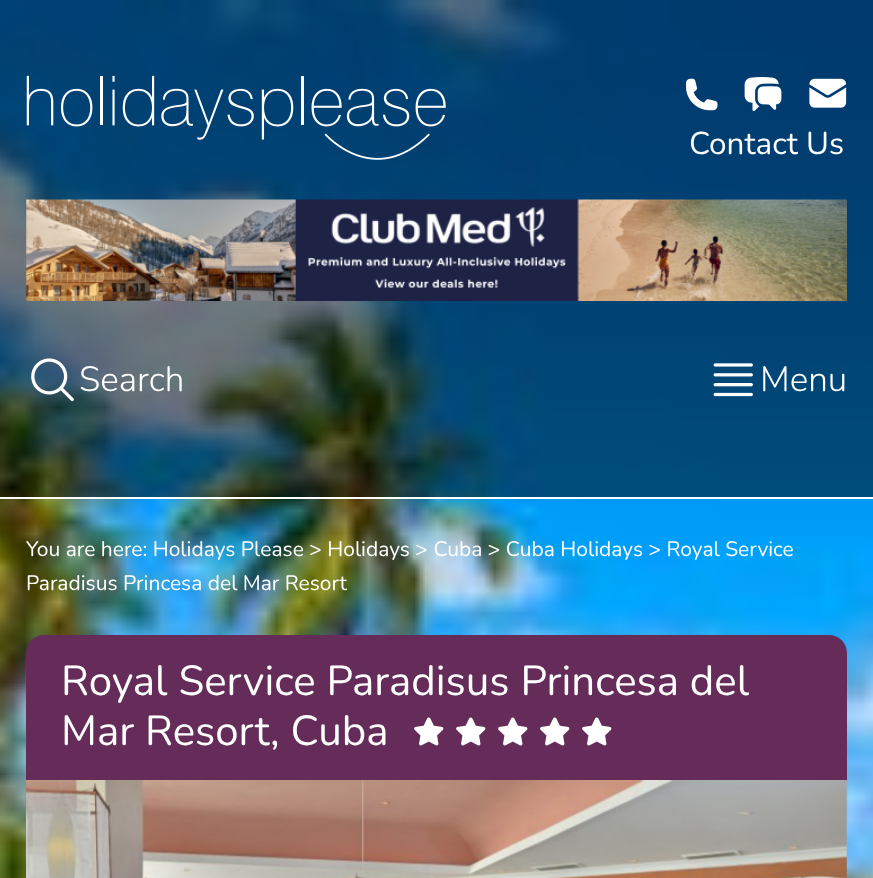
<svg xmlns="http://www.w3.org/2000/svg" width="873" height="878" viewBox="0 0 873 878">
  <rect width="100%" height="100%" fill="rgb(255,255,255)"/>
  <image x="0" y="0" width="873" height="878" href="pic1.png"/>
  <rect x="0" y="0" width="873" height="497" fill="rgba(0,0,0,0.5)"/>
  <rect x="0" y="497" width="873" height="2" fill="rgb(255,255,255)"/>
  <image x="26" y="75" width="420" height="85" href="pic2.png"/>
  <image x="686" y="77" width="161" height="35" href="pic3.png"/>
  <text x="689" y="154" font-family="Nunito" font-size="31.5" fill="rgb(255,255,255)">Contact Us</text>
  <image x="26" y="199" width="821" height="102" href="pic4.png"/>
  <image x="31" y="358" width="43" height="44" href="pic5.png"/>
  <text x="79" y="391" font-family="Nunito" font-size="35" font-weight="300" fill="rgb(255,255,255)">Search</text>
  <image x="713" y="363" width="40" height="34" href="pic6.png"/>
  <text x="760" y="391" font-family="Nunito" font-size="35" font-weight="300" fill="rgb(255,255,255)">Menu</text>
  <g font-family="Nunito" font-size="21" fill="rgb(255,255,255)">
    <text>
      <tspan x="26" y="556">You are here: Holidays Please &gt; Holidays &gt; Cuba &gt; Cuba Holidays &gt; Royal Service</tspan>
      <tspan x="26" y="590">Paradisus Princesa del Mar Resort</tspan>
    </text>
  </g>
  <path d="M44 635H829C839 635 847 643 847 653V781H26V653C26 643 34 635 44 635Z" fill="rgb(101,44,90)"/>
  <g font-family="Nunito" font-size="42" fill="rgb(255,255,255)">
    <text>
      <tspan x="61" y="695">Royal Service Paradisus Princesa del</tspan>
      <tspan x="61" y="745">Mar Resort, Cuba</tspan>
    </text>
  </g>
  <image x="414" y="717" width="30" height="29" href="pic7.png"/>
  <image x="456" y="717" width="30" height="29" href="pic7.png"/>
  <image x="498" y="717" width="30" height="29" href="pic7.png"/>
  <image x="540" y="717" width="30" height="29" href="pic7.png"/>
  <image x="582" y="717" width="30" height="29" href="pic7.png"/>
  <image x="26" y="780" width="821" height="98" href="pic8.png"/>
</svg>
